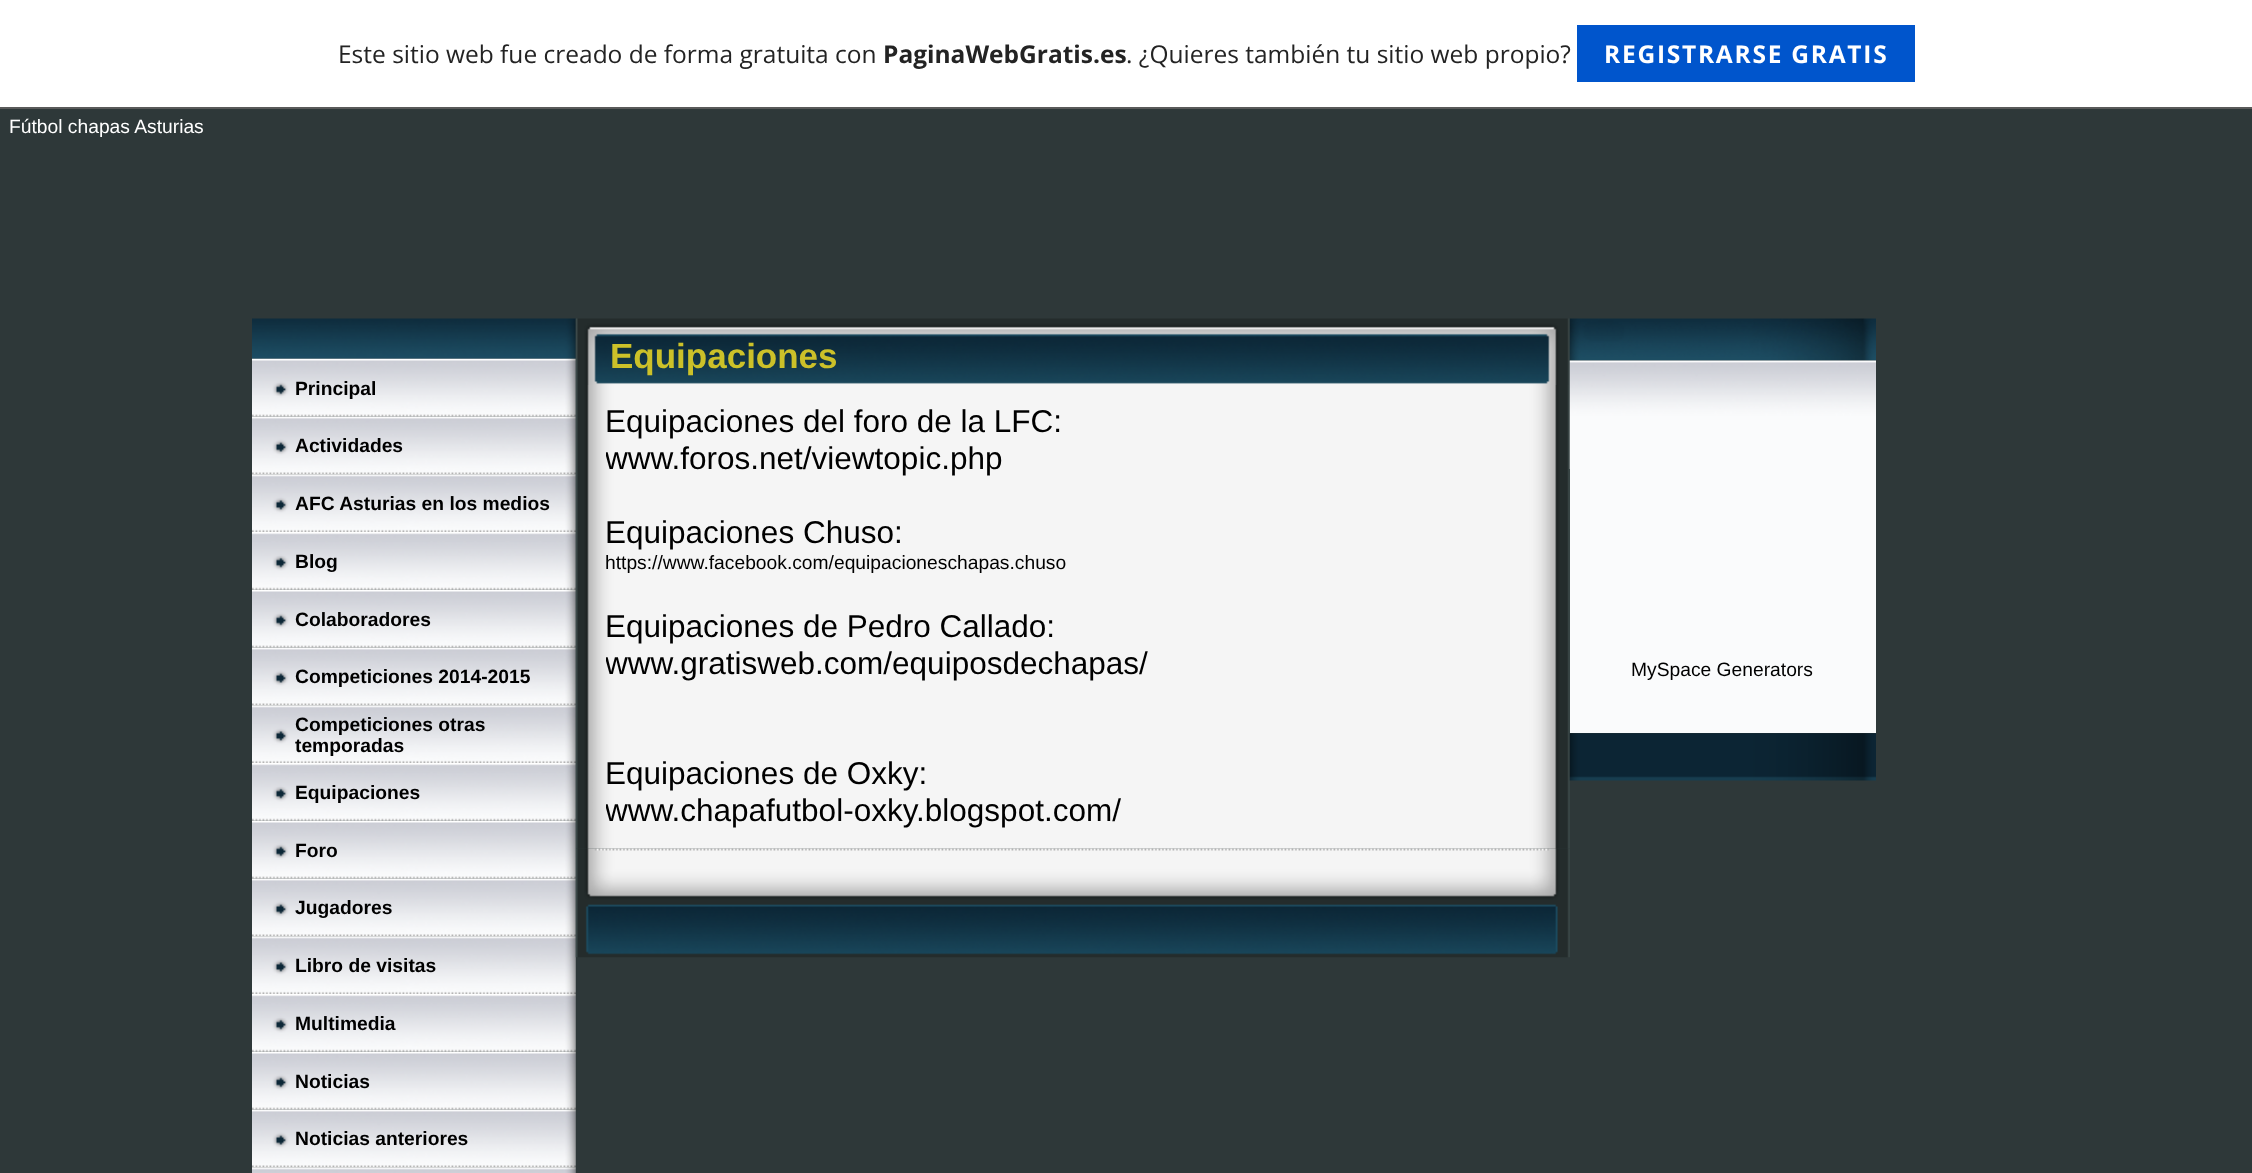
<svg xmlns="http://www.w3.org/2000/svg" width="2252" height="1173" viewBox="0 0 2252 1173">
  <defs>
    <clipPath id="clip1"><rect x="606" y="385" width="932" height="464"/></clipPath>
  </defs>
  <rect width="100%" height="100%" fill="rgb(46,56,57)"/>
  <rect x="0" y="0" width="2252" height="107" fill="rgb(255,255,255)"/>
  <rect x="0" y="107" width="2252" height="2" fill="rgb(90,90,90)"/>
  <text x="338" y="63" font-family="Open Sans" font-size="24.5" fill="rgb(35,35,35)">Este sitio web fue creado de forma gratuita con</text>
  <text x="883" y="63" font-family="Open Sans" font-size="24.5" font-weight="bold" fill="rgb(35,35,35)">PaginaWebGratis.es</text>
  <text x="1126" y="63" font-family="Open Sans" font-size="24.5" fill="rgb(35,35,35)">. ¿Quieres también tu sitio web propio?</text>
  <rect x="1577" y="25" width="338" height="57" fill="rgb(0,85,204)"/>
  <text x="1604" y="63" font-family="Open Sans" font-size="24.5" font-weight="bold" letter-spacing="1.75" fill="rgb(255,255,255)">REGISTRARSE GRATIS</text>
  <text x="9" y="133" font-family="Liberation Sans" font-size="19.25" fill="rgb(255,255,255)">Fútbol chapas Asturias</text>
  <image x="252" y="318" width="324" height="41" href="pic1.png"/>
  <image x="252" y="358" width="324" height="59" href="pic2.png"/>
  <text x="295" y="395" font-family="Liberation Sans" font-size="19.25" font-weight="bold" fill="rgb(0,0,0)">Principal</text>
  <image x="252" y="416" width="324" height="59" href="pic3.png"/>
  <text x="295" y="452" font-family="Liberation Sans" font-size="19.25" font-weight="bold" fill="rgb(0,0,0)">Actividades</text>
  <image x="252" y="474" width="324" height="58" href="pic4.png"/>
  <text x="295" y="510" font-family="Liberation Sans" font-size="19.25" font-weight="bold" fill="rgb(0,0,0)">AFC Asturias en los medios</text>
  <image x="252" y="532" width="324" height="58" href="pic5.png"/>
  <text x="295" y="568" font-family="Liberation Sans" font-size="19.25" font-weight="bold" fill="rgb(0,0,0)">Blog</text>
  <image x="252" y="589" width="324" height="59" href="pic6.png"/>
  <text x="295" y="626" font-family="Liberation Sans" font-size="19.25" font-weight="bold" fill="rgb(0,0,0)">Colaboradores</text>
  <image x="252" y="647" width="324" height="59" href="pic3.png"/>
  <text x="295" y="683" font-family="Liberation Sans" font-size="19.25" font-weight="bold" fill="rgb(0,0,0)">Competiciones 2014-2015</text>
  <image x="252" y="705" width="324" height="58" href="pic4.png"/>
  <g font-family="Liberation Sans" font-size="19.25" font-weight="bold" fill="rgb(0,0,0)">
    <text>
      <tspan x="295" y="731">Competiciones otras</tspan>
      <tspan x="295" y="752">temporadas</tspan>
    </text>
  </g>
  <image x="252" y="763" width="324" height="58" href="pic5.png"/>
  <text x="295" y="799" font-family="Liberation Sans" font-size="19.25" font-weight="bold" fill="rgb(0,0,0)">Equipaciones</text>
  <image x="252" y="820" width="324" height="59" href="pic6.png"/>
  <text x="295" y="857" font-family="Liberation Sans" font-size="19.25" font-weight="bold" fill="rgb(0,0,0)">Foro</text>
  <image x="252" y="878" width="324" height="59" href="pic3.png"/>
  <text x="295" y="914" font-family="Liberation Sans" font-size="19.25" font-weight="bold" fill="rgb(0,0,0)">Jugadores</text>
  <image x="252" y="936" width="324" height="58" href="pic4.png"/>
  <text x="295" y="972" font-family="Liberation Sans" font-size="19.25" font-weight="bold" fill="rgb(0,0,0)">Libro de visitas</text>
  <image x="252" y="994" width="324" height="58" href="pic5.png"/>
  <text x="295" y="1030" font-family="Liberation Sans" font-size="19.25" font-weight="bold" fill="rgb(0,0,0)">Multimedia</text>
  <image x="252" y="1051" width="324" height="59" href="pic6.png"/>
  <text x="295" y="1088" font-family="Liberation Sans" font-size="19.25" font-weight="bold" fill="rgb(0,0,0)">Noticias</text>
  <image x="252" y="1109" width="324" height="59" href="pic3.png"/>
  <text x="295" y="1145" font-family="Liberation Sans" font-size="19.25" font-weight="bold" fill="rgb(0,0,0)">Noticias anteriores</text>
  <image x="252" y="1167" width="324" height="6" href="pic7.png"/>
  <image x="575" y="318" width="995" height="67" href="pic8.png"/>
  <text x="610" y="368" font-family="Liberation Sans" font-size="35" font-weight="bold" fill="rgb(204,193,41)">Equipaciones</text>
  <image x="575" y="385" width="995" height="464" href="pic9.png"/>
  <text x="605" y="432" font-family="Liberation Sans" font-size="31.5" fill="rgb(0,0,0)">Equipaciones del foro de la LFC:</text>
  <g clip-path="url(#clip1)">
    <text x="605" y="469" font-family="Liberation Sans" font-size="31.5" fill="rgb(0,0,0)">www.foros.net/viewtopic.php</text>
  </g>
  <text x="605" y="543" font-family="Liberation Sans" font-size="31.5" fill="rgb(0,0,0)">Equipaciones Chuso:</text>
  <text x="605" y="569" font-family="Liberation Sans" font-size="19.25" fill="rgb(0,0,0)">https://www.facebook.com/equipacioneschapas.chuso</text>
  <text x="605" y="637" font-family="Liberation Sans" font-size="31.5" fill="rgb(0,0,0)">Equipaciones de Pedro Callado:</text>
  <g clip-path="url(#clip1)">
    <text x="605" y="674" font-family="Liberation Sans" font-size="31.5" fill="rgb(0,0,0)">www.gratisweb.com/equiposdechapas/</text>
  </g>
  <text x="605" y="784" font-family="Liberation Sans" font-size="31.5" fill="rgb(0,0,0)">Equipaciones de Oxky:</text>
  <g clip-path="url(#clip1)">
    <text x="605" y="821" font-family="Liberation Sans" font-size="31.5" fill="rgb(0,0,0)">www.chapafutbol-oxky.blogspot.com/</text>
  </g>
  <image x="575" y="848" width="995" height="55" href="pic10.png"/>
  <image x="575" y="903" width="995" height="55" href="pic11.png"/>
  <image x="1569" y="318" width="307" height="43" href="pic12.png"/>
  <rect x="1570" y="469" width="306" height="264" fill="rgb(250,251,252)"/>
  <image x="1569" y="360" width="307" height="109" href="pic13.png"/>
  <text x="1631" y="676" font-family="Liberation Sans" font-size="19.25" fill="rgb(0,0,0)">MySpace Generators</text>
  <image x="1569" y="733" width="307" height="48" href="pic14.png"/>
</svg>
